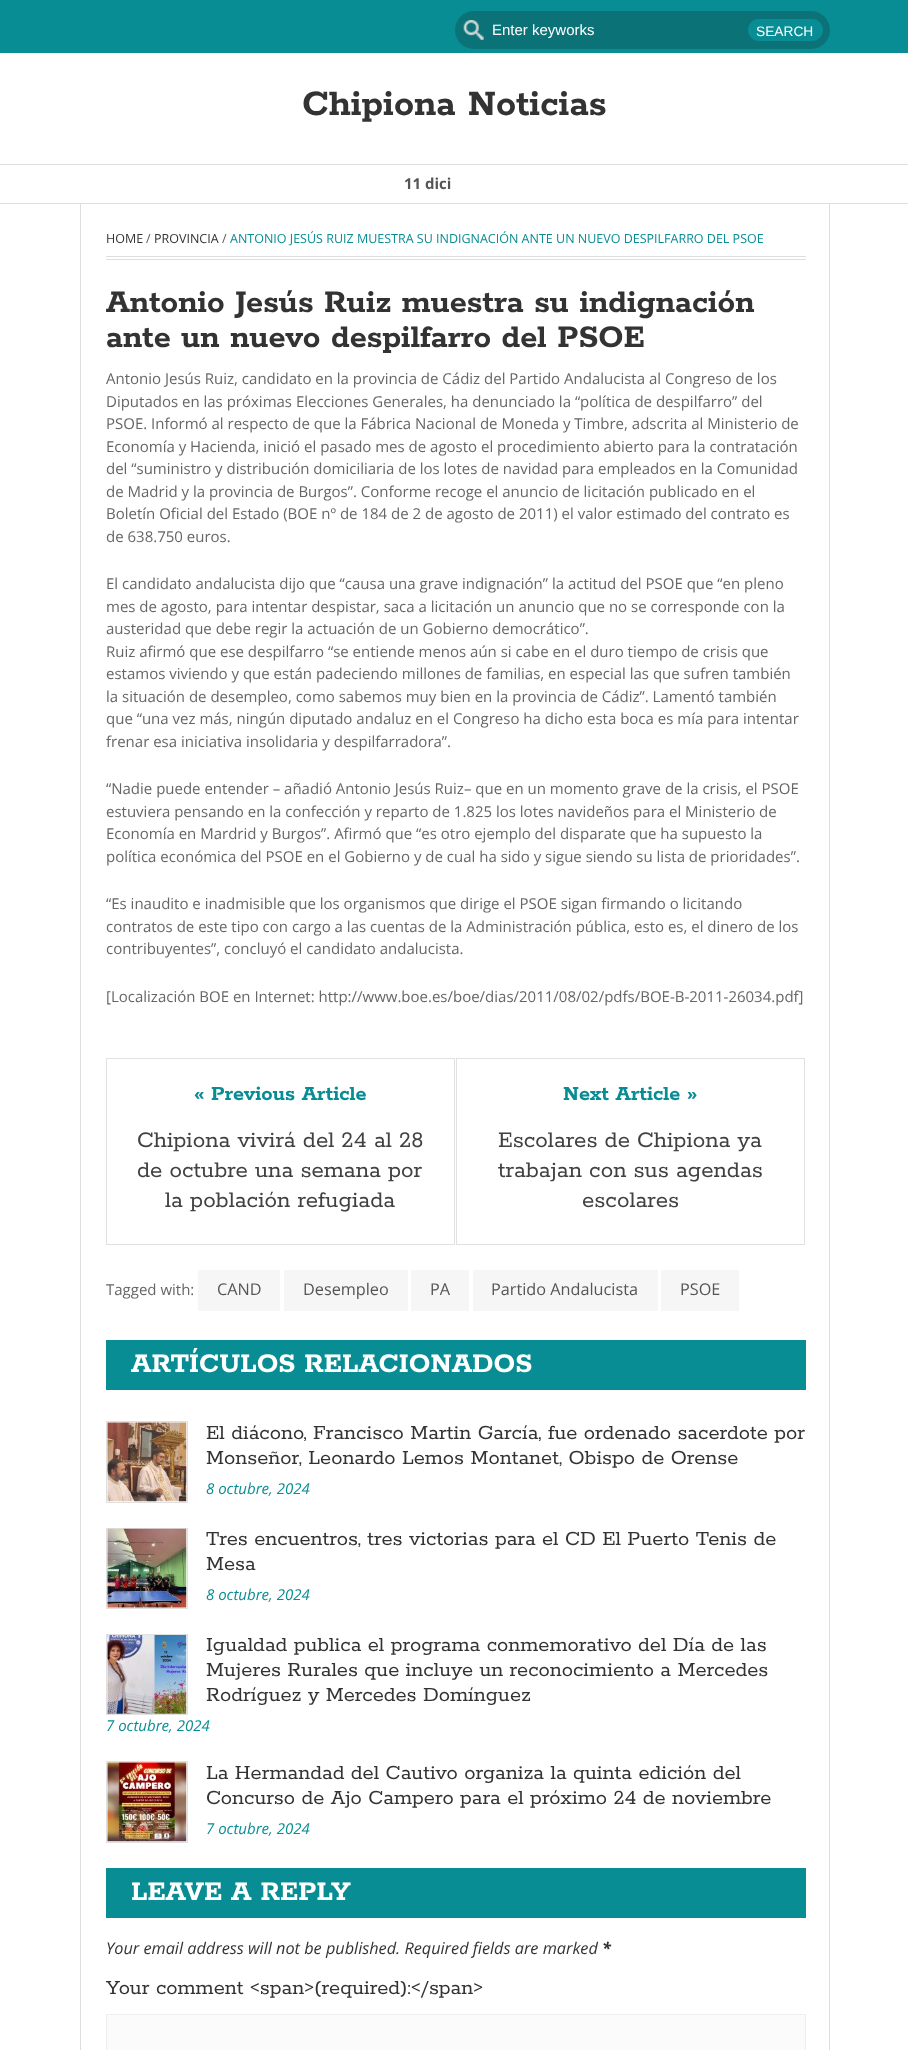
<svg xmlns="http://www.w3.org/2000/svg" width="908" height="2050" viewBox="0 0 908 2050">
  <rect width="100%" height="100%" fill="rgb(255,255,255)"/>
  <rect x="0" y="0" width="908" height="53" fill="rgb(9,141,148)"/>
  <rect x="455" y="11" width="375" height="38" rx="19" fill="rgb(11,115,120)"/>
  <image x="463" y="20" width="21" height="20" href="pic1.png"/>
  <text x="492" y="35" font-family="Liberation Sans" font-size="15" fill="rgb(255,255,255)">Enter keyworks</text>
  <rect x="748" y="19" width="75" height="22" rx="11" fill="rgb(9,141,148)"/>
  <text x="756" y="36" font-family="Liberation Sans" font-size="13.75" fill="rgb(255,255,255)">SEARCH</text>
  <rect x="0" y="164" width="908" height="1" fill="rgb(223,223,223)"/>
  <text x="302" y="115" font-family="Rokkitt" font-size="40" font-weight="bold" fill="rgb(51,51,51)">Chipiona Noticias</text>
  <rect x="0" y="203" width="908" height="1" fill="rgb(223,223,223)"/>
  <text x="404" y="189" font-family="Open Sans" font-size="15" font-weight="bold" fill="rgb(85,85,85)">11 dici</text>
  <rect x="829" y="204" width="1" height="1846" fill="rgb(222,222,222)"/>
  <rect x="80" y="204" width="1" height="1846" fill="rgb(222,222,222)"/>
  <rect x="106" y="256" width="700" height="1" fill="rgb(222,222,222)"/>
  <rect x="106" y="259" width="700" height="1" fill="rgb(222,222,222)"/>
  <text x="106" y="243" font-family="Open Sans" font-size="12.5" fill="rgb(51,51,51)">HOME</text>
  <text x="146" y="243" font-family="Open Sans" font-size="12.5" fill="rgb(91,91,91)">/</text>
  <text x="154" y="243" font-family="Open Sans" font-size="12.5" fill="rgb(51,51,51)">PROVINCIA</text>
  <text x="222" y="243" font-family="Open Sans" font-size="12.5" fill="rgb(91,91,91)">/</text>
  <text x="230" y="243" font-family="Open Sans" font-size="12.5" fill="rgb(9,141,148)">ANTONIO JESÚS RUIZ MUESTRA SU INDIGNACIÓN ANTE UN NUEVO DESPILFARRO DEL PSOE</text>
  <g font-family="Rokkitt" font-size="35" font-weight="bold" fill="rgb(51,51,51)">
    <text>
      <tspan x="106" y="312">Antonio Jesús Ruiz muestra su indignación</tspan>
      <tspan x="106" y="347">ante un nuevo despilfarro del PSOE</tspan>
    </text>
  </g>
  <g font-family="Open Sans" font-size="15" fill="rgb(102,102,102)">
    <text>
      <tspan x="106" y="384">Antonio Jesús Ruiz, candidato en la provincia de Cádiz del Partido Andalucista al Congreso de los</tspan>
      <tspan x="106" y="407">Diputados en las próximas Elecciones Generales, ha denunciado la “política de despilfarro” del</tspan>
      <tspan x="106" y="429">PSOE. Informó al respecto de que la Fábrica Nacional de Moneda y Timbre, adscrita al Ministerio de</tspan>
      <tspan x="106" y="452">Economía y Hacienda, inició el pasado mes de agosto el procedimiento abierto para la contratación</tspan>
      <tspan x="106" y="474">del “suministro y distribución domiciliaria de los lotes de navidad para empleados en la Comunidad</tspan>
      <tspan x="106" y="497">de Madrid y la provincia de Burgos”. Conforme recoge el anuncio de licitación publicado en el</tspan>
      <tspan x="106" y="519">Boletín Oficial del Estado (BOE nº de 184 de 2 de agosto de 2011) el valor estimado del contrato es</tspan>
      <tspan x="106" y="542">de 638.750 euros.</tspan>
    </text>
    <text>
      <tspan x="106" y="589">El candidato andalucista dijo que “causa una grave indignación” la actitud del PSOE que “en pleno</tspan>
      <tspan x="106" y="612">mes de agosto, para intentar despistar, saca a licitación un anuncio que no se corresponde con la</tspan>
      <tspan x="106" y="634">austeridad que debe regir la actuación de un Gobierno democrático”.</tspan>
      <tspan x="106" y="657">Ruiz afirmó que ese despilfarro “se entiende menos aún si cabe en el duro tiempo de crisis que</tspan>
      <tspan x="106" y="679">estamos viviendo y que están padeciendo millones de familias, en especial las que sufren también</tspan>
      <tspan x="106" y="702">la situación de desempleo, como sabemos muy bien en la provincia de Cádiz”. Lamentó también</tspan>
      <tspan x="106" y="724">que “una vez más, ningún diputado andaluz en el Congreso ha dicho esta boca es mía para intentar</tspan>
      <tspan x="106" y="747">frenar esa iniciativa insolidaria y despilfarradora”.</tspan>
    </text>
    <text>
      <tspan x="106" y="794">“Nadie puede entender – añadió Antonio Jesús Ruiz– que en un momento grave de la crisis, el PSOE</tspan>
      <tspan x="106" y="817">estuviera pensando en la confección y reparto de 1.825 los lotes navideños para el Ministerio de</tspan>
      <tspan x="106" y="839">Economía en Mardrid y Burgos”. Afirmó que “es otro ejemplo del disparate que ha supuesto la</tspan>
      <tspan x="106" y="862">política económica del PSOE en el Gobierno y de cual ha sido y sigue siendo su lista de prioridades”.</tspan>
    </text>
    <text>
      <tspan x="106" y="909">“Es inaudito e inadmisible que los organismos que dirige el PSOE sigan firmando o licitando</tspan>
      <tspan x="106" y="932">contratos de este tipo con cargo a las cuentas de la Administración pública, esto es, el dinero de los</tspan>
      <tspan x="106" y="954">contribuyentes”, concluyó el candidato andalucista.</tspan>
    </text>
    <text x="106" y="1002">[Localización BOE en Internet: http://www.boe.es/boe/dias/2011/08/02/pdfs/BOE-B-2011-26034.pdf]</text>
  </g>
  <rect x="106.5" y="1058.5" width="348" height="186" fill="none" stroke="rgb(225,225,225)"/>
  <text x="194" y="1100" font-family="Rokkitt" font-size="22.5" font-weight="bold" fill="rgb(9,141,148)">« Previous Article</text>
  <g font-family="Rokkitt" font-size="25" fill="rgb(65,65,65)">
    <text>
      <tspan x="137" y="1147">Chipiona vivirá del 24 al 28</tspan>
      <tspan x="137" y="1177">de octubre una semana por</tspan>
    </text>
    <text x="165" y="1207">la población refugiada</text>
  </g>
  <rect x="456.5" y="1058.5" width="348" height="186" fill="none" stroke="rgb(225,225,225)"/>
  <text x="563" y="1100" font-family="Rokkitt" font-size="22.5" font-weight="bold" fill="rgb(9,141,148)">Next Article »</text>
  <g font-family="Rokkitt" font-size="25" fill="rgb(65,65,65)">
    <text>
      <tspan x="498" y="1147">Escolares de Chipiona ya</tspan>
      <tspan x="498" y="1177">trabajan con sus agendas</tspan>
    </text>
    <text x="582" y="1207">escolares</text>
  </g>
  <text x="106" y="1295" font-family="Open Sans" font-size="15" fill="rgb(102,102,102)">Tagged with:</text>
  <rect x="198" y="1270" width="82" height="41" fill="rgb(246,246,246)"/>
  <text x="217" y="1295" font-family="Open Sans" font-size="16.25" fill="rgb(85,85,85)">CAND</text>
  <rect x="284" y="1270" width="124" height="41" fill="rgb(246,246,246)"/>
  <text x="303" y="1295" font-family="Open Sans" font-size="16.25" fill="rgb(85,85,85)">Desempleo</text>
  <rect x="411" y="1270" width="58" height="41" fill="rgb(246,246,246)"/>
  <text x="430" y="1295" font-family="Open Sans" font-size="16.25" fill="rgb(85,85,85)">PA</text>
  <rect x="473" y="1270" width="185" height="41" fill="rgb(246,246,246)"/>
  <text x="491" y="1295" font-family="Open Sans" font-size="16.25" fill="rgb(85,85,85)">Partido Andalucista</text>
  <rect x="661" y="1270" width="78" height="41" fill="rgb(246,246,246)"/>
  <text x="680" y="1295" font-family="Open Sans" font-size="16.25" fill="rgb(85,85,85)">PSOE</text>
  <rect x="106" y="1340" width="700" height="50" fill="rgb(9,141,148)"/>
  <text x="131" y="1372" font-family="Rokkitt" font-size="30" font-weight="bold" fill="rgb(255,255,255)">ARTÍCULOS RELACIONADOS</text>
  <rect x="106.5" y="1421.5" width="81" height="81" fill="none" stroke="rgb(224,224,224)"/>
  <image x="107" y="1422" width="80" height="80" href="pic2.png"/>
  <g font-family="Rokkitt" font-size="22.5" fill="rgb(51,51,51)">
    <text>
      <tspan x="206" y="1439">El diácono, Francisco Martin García, fue ordenado sacerdote por</tspan>
      <tspan x="206" y="1464">Monseñor, Leonardo Lemos Montanet, Obispo de Orense</tspan>
    </text>
  </g>
  <text x="206" y="1494" font-family="Open Sans" font-size="15" font-style="italic" fill="rgb(9,141,148)">8 octubre, 2024</text>
  <rect x="106.5" y="1528.5" width="81" height="80" fill="none" stroke="rgb(224,224,224)"/>
  <image x="107" y="1528" width="80" height="80" href="pic3.png"/>
  <g font-family="Rokkitt" font-size="22.5" fill="rgb(51,51,51)">
    <text>
      <tspan x="206" y="1545">Tres encuentros, tres victorias para el CD El Puerto Tenis de</tspan>
      <tspan x="206" y="1570">Mesa</tspan>
    </text>
  </g>
  <text x="206" y="1600" font-family="Open Sans" font-size="15" font-style="italic" fill="rgb(9,141,148)">8 octubre, 2024</text>
  <rect x="106.5" y="1634.5" width="81" height="80" fill="none" stroke="rgb(224,224,224)"/>
  <image x="107" y="1635" width="80" height="79" href="pic4.png"/>
  <g font-family="Rokkitt" font-size="22.5" fill="rgb(51,51,51)">
    <text>
      <tspan x="206" y="1651">Igualdad publica el programa conmemorativo del Día de las</tspan>
      <tspan x="206" y="1676">Mujeres Rurales que incluye un reconocimiento a Mercedes</tspan>
      <tspan x="206" y="1701">Rodríguez y Mercedes Domínguez</tspan>
    </text>
  </g>
  <text x="106" y="1731" font-family="Open Sans" font-size="15" font-style="italic" fill="rgb(9,141,148)">7 octubre, 2024</text>
  <rect x="106.5" y="1761.5" width="81" height="81" fill="none" stroke="rgb(224,224,224)"/>
  <image x="107" y="1762" width="80" height="80" href="pic5.png"/>
  <g font-family="Rokkitt" font-size="22.5" fill="rgb(51,51,51)">
    <text>
      <tspan x="206" y="1779">La Hermandad del Cautivo organiza la quinta edición del</tspan>
      <tspan x="206" y="1804">Concurso de Ajo Campero para el próximo 24 de noviembre</tspan>
    </text>
  </g>
  <text x="206" y="1834" font-family="Open Sans" font-size="15" font-style="italic" fill="rgb(9,141,148)">7 octubre, 2024</text>
  <rect x="106" y="1868" width="700" height="50" fill="rgb(9,141,148)"/>
  <text x="131" y="1900" font-family="Rokkitt" font-size="30" font-weight="bold" fill="rgb(255,255,255)">LEAVE A REPLY</text>
  <text x="106" y="1954" font-family="Open Sans" font-size="16.25" font-style="italic" fill="rgb(51,51,51)">Your email address will not be published. Required fields are marked</text>
  <text x="602" y="1954" font-family="Open Sans" font-size="16.25" font-weight="bold" font-style="italic" fill="rgb(51,51,51)">*</text>
  <text x="106" y="1994" font-family="Rokkitt" font-size="22.5" fill="rgb(51,51,51)">Your comment &lt;span&gt;(required):&lt;/span&gt;</text>
  <rect x="106.5" y="2014.5" width="699" height="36" fill="rgb(251,251,251)" stroke="rgb(238,238,238)"/>
</svg>
